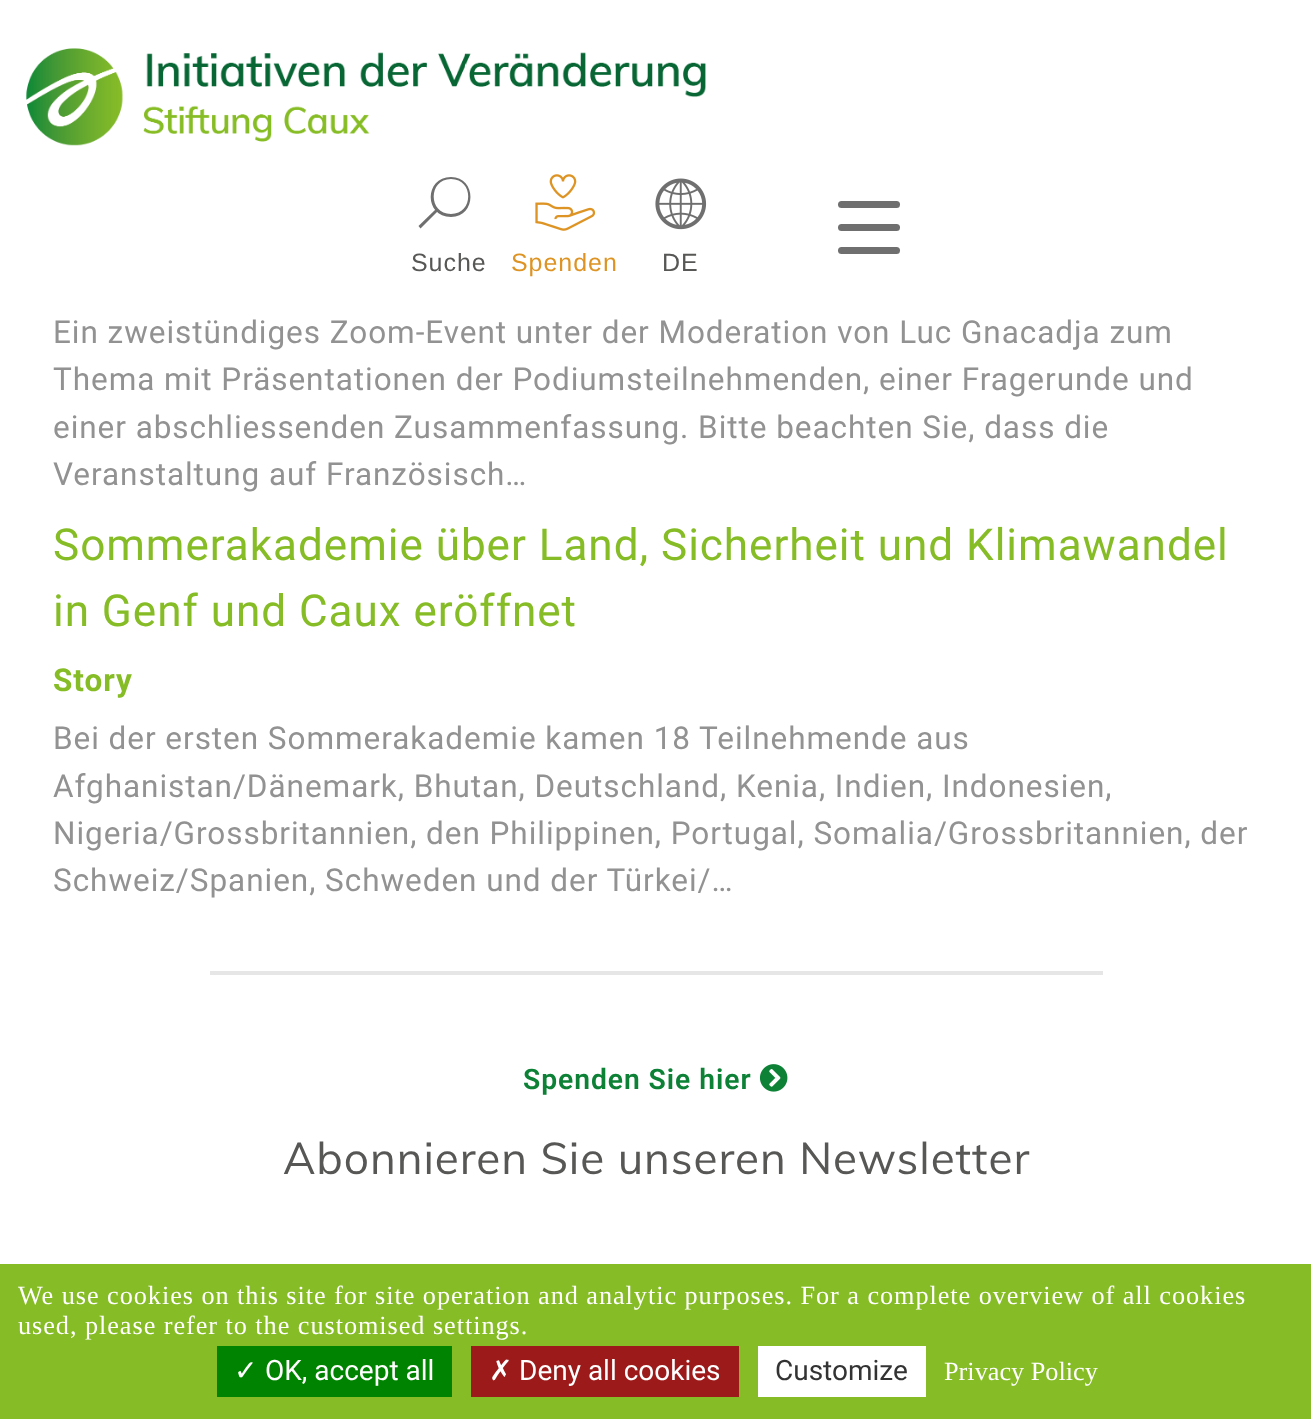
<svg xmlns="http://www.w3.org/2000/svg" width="1311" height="1419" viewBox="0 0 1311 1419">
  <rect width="100%" height="100%" fill="rgb(255,255,255)"/>
  <image x="26" y="48" width="680" height="98" href="pic1.png"/>
  <rect x="838" y="201" width="62" height="7" rx="3.5" fill="rgb(111,111,111)"/>
  <rect x="838" y="224" width="62" height="7" rx="3.5" fill="rgb(111,111,111)"/>
  <rect x="838" y="247" width="62" height="7" rx="3.5" fill="rgb(111,111,111)"/>
  <path d="M451 217C424 217 424 177 451 177C477 177 477 217 451 217ZM451 179C428 179 428 214 451 214C474 214 474 179 451 179Z" fill="rgb(111,111,111)"/>
  <path d="M418.5 226L436 209L438 211L420.5 228.5Z" fill="rgb(111,111,111)"/>
  <text x="411" y="271" font-family="Liberation Sans" font-size="25" letter-spacing="0.95" fill="rgb(87,87,86)">Suche</text>
  <image x="535" y="174" width="61" height="57" href="pic2.png"/>
  <text x="511" y="271" font-family="Liberation Sans" font-size="25" letter-spacing="0.95" fill="rgb(221,148,36)">Spenden</text>
  <image x="655" y="178" width="52" height="52" href="pic3.png"/>
  <text x="662" y="271" font-family="Liberation Sans" font-size="25" letter-spacing="0.95" fill="rgb(87,87,86)">DE</text>
  <g font-family="Roboto" font-size="31.5" letter-spacing="0.95" fill="rgb(146,146,146)">
    <text>
      <tspan x="53" y="343">Ein zweistündiges Zoom-Event unter der Moderation von Luc Gnacadja zum</tspan>
      <tspan x="53" y="390">Thema mit Präsentationen der Podiumsteilnehmenden, einer Fragerunde und</tspan>
      <tspan x="53" y="438">einer abschliessenden Zusammenfassung. Bitte beachten Sie, dass die</tspan>
      <tspan x="53" y="485">Veranstaltung auf Französisch…</tspan>
    </text>
  </g>
  <g font-family="Roboto" font-size="44.1" letter-spacing="0.95" fill="rgb(134,188,37)">
    <text>
      <tspan x="53" y="560">Sommerakademie über Land, Sicherheit und Klimawandel</tspan>
      <tspan x="53" y="626">in Genf und Caux eröffnet</tspan>
    </text>
  </g>
  <text x="53" y="691" font-family="Roboto" font-size="31.5" font-weight="bold" letter-spacing="0.95" fill="rgb(134,188,37)">Story</text>
  <g font-family="Roboto" font-size="31.5" letter-spacing="0.95" fill="rgb(146,146,146)">
    <text>
      <tspan x="53" y="749">Bei der ersten Sommerakademie kamen 18 Teilnehmende aus</tspan>
      <tspan x="53" y="797">Afghanistan/Dänemark, Bhutan, Deutschland, Kenia, Indien, Indonesien,</tspan>
      <tspan x="53" y="844">Nigeria/Grossbritannien, den Philippinen, Portugal, Somalia/Grossbritannien, der</tspan>
      <tspan x="53" y="891">Schweiz/Spanien, Schweden und der Türkei/…</tspan>
    </text>
  </g>
  <rect x="210" y="971" width="893" height="4" fill="rgb(230,230,230)"/>
  <text x="523" y="1089" font-family="Roboto" font-size="28.25" font-weight="600" letter-spacing="0.95" fill="rgb(13,129,54)">Spenden Sie hier</text>
  <image x="759" y="1064" width="29" height="28" href="pic4.png"/>
  <text x="283" y="1174" font-family="Muli" font-size="44.1" letter-spacing="0.95" fill="rgb(87,87,86)">Abonnieren Sie unseren Newsletter</text>
  <rect x="0" y="1264" width="1311" height="155" fill="rgb(134,188,37)"/>
  <g font-family="Liberation Serif" font-size="26.25" letter-spacing="0.95" fill="rgb(255,255,255)">
    <text>
      <tspan x="18" y="1304">We use cookies on this site for site operation and analytic purposes. For a complete overview of all cookies</tspan>
      <tspan x="18" y="1334">used, please refer to the customised settings.</tspan>
    </text>
  </g>
  <rect x="217" y="1346" width="235" height="51" fill="rgb(0,131,0)"/>
  <text x="234" y="1380" font-family="DejaVu Sans" font-size="28" fill="rgb(255,255,255)">✓</text>
  <text x="265" y="1380" font-family="Roboto" font-size="28" fill="rgb(255,255,255)">OK, accept all</text>
  <rect x="471" y="1346" width="268" height="51" fill="rgb(156,26,26)"/>
  <text x="489" y="1380" font-family="DejaVu Sans" font-size="28" fill="rgb(255,255,255)">✗</text>
  <text x="519" y="1380" font-family="Roboto" font-size="28" fill="rgb(255,255,255)">Deny all cookies</text>
  <rect x="758" y="1346" width="168" height="51" fill="rgb(255,255,255)"/>
  <text x="775" y="1380" font-family="Roboto" font-size="28" fill="rgb(51,51,51)">Customize</text>
  <text x="944" y="1380" font-family="Liberation Serif" font-size="26.25" fill="rgb(255,255,255)">Privacy Policy</text>
</svg>
